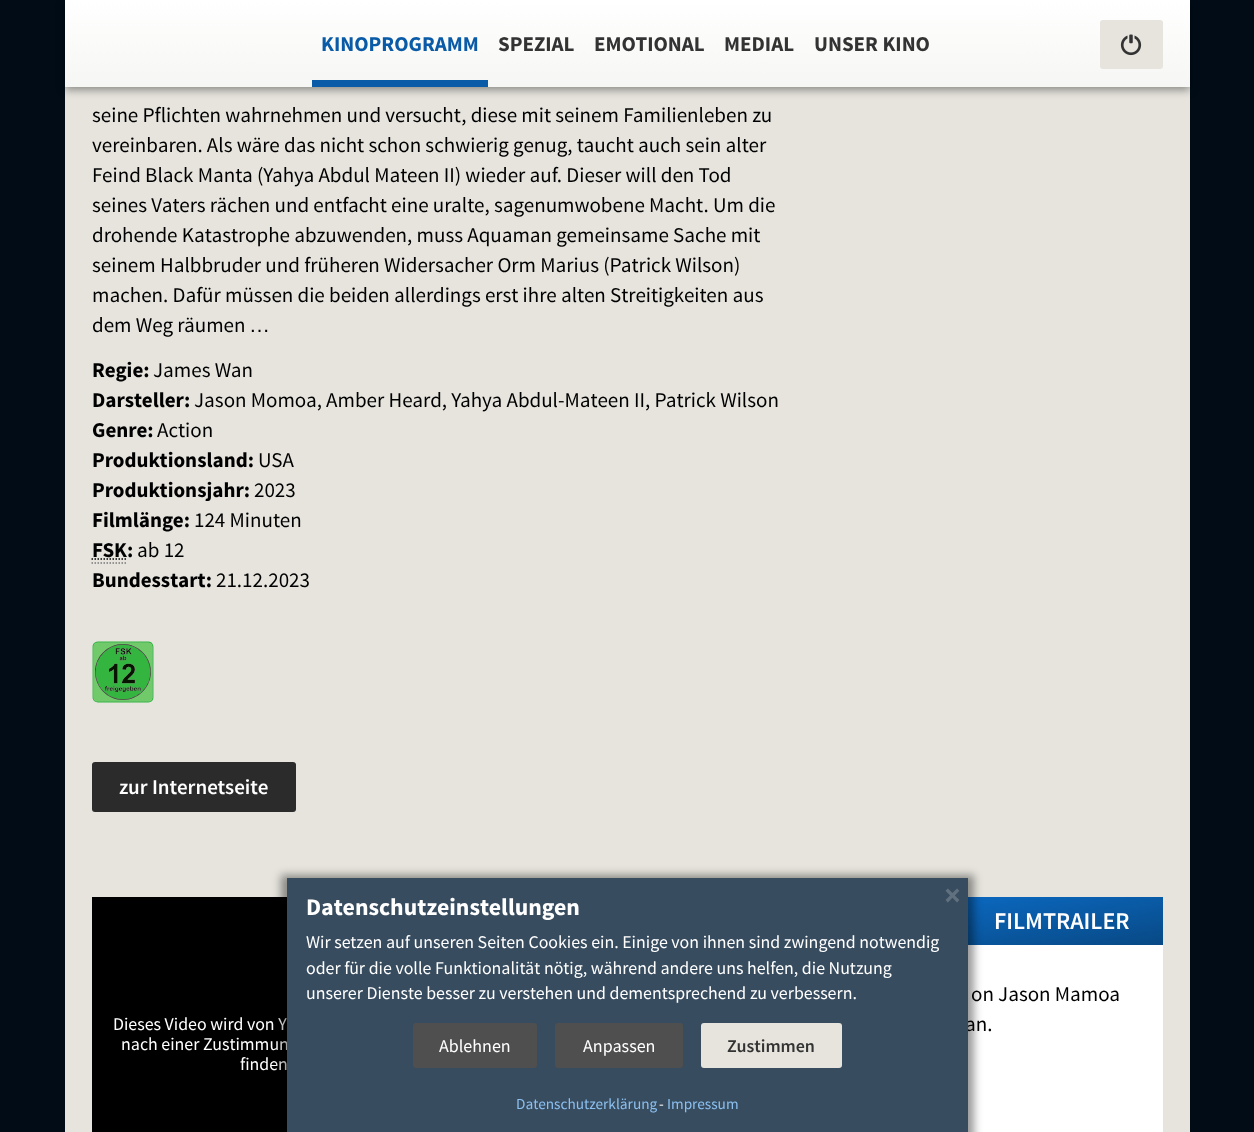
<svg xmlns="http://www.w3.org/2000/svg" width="1254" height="1132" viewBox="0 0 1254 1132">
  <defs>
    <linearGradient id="g1" gradientUnits="userSpaceOnUse" x1="627" y1="0" x2="627" y2="87"><stop offset="0" stop-color="rgb(255,255,255)"/><stop offset="1" stop-color="rgb(246,246,244)"/></linearGradient>
    <linearGradient id="g2" gradientUnits="userSpaceOnUse" x1="1055" y1="881" x2="1069" y2="961"><stop offset="0" stop-color="rgb(11,104,191)"/><stop offset="1" stop-color="rgb(8,73,133)"/></linearGradient>
  </defs>
  <rect width="100%" height="100%" fill="rgb(1,12,23)"/>
  <rect x="65" y="87" width="1125" height="1045" fill="rgb(230,228,221)"/>
  <rect x="65" y="3" width="1125" height="87" fill="rgba(0,0,0,0.4)" filter="blur(4.5px)"/>
  <rect x="65" y="0" width="1125" height="87" fill="url(#g1)"/>
  <rect x="312" y="80" width="176" height="7" fill="rgb(10,91,167)"/>
  <text x="321" y="51" font-family="Source Sans Pro" font-size="21" font-weight="bold" fill="rgb(10,91,167)">KINOPROGRAMM</text>
  <g font-family="Source Sans Pro" font-size="21" font-weight="bold" fill="rgb(51,51,51)">
    <text x="498" y="51">SPEZIAL</text>
    <text x="594" y="51">EMOTIONAL</text>
    <text x="724" y="51">MEDIAL</text>
    <text x="814" y="51">UNSER KINO</text>
  </g>
  <rect x="1100" y="20" width="63" height="49" rx="3" fill="rgb(230,228,221)"/>
  <image x="1120" y="34" width="22" height="22" href="pic1.png"/>
  <g font-family="Source Sans Pro" font-size="21" fill="rgb(0,0,0)">
    <text>
      <tspan x="92" y="122">seine Pflichten wahrnehmen und versucht, diese mit seinem Familienleben zu</tspan>
      <tspan x="92" y="152">vereinbaren. Als wäre das nicht schon schwierig genug, taucht auch sein alter</tspan>
      <tspan x="92" y="182">Feind Black Manta (Yahya Abdul Mateen II) wieder auf. Dieser will den Tod</tspan>
      <tspan x="92" y="212">seines Vaters rächen und entfacht eine uralte, sagenumwobene Macht. Um die</tspan>
      <tspan x="92" y="242">drohende Katastrophe abzuwenden, muss Aquaman gemeinsame Sache mit</tspan>
      <tspan x="92" y="272">seinem Halbbruder und früheren Widersacher Orm Marius (Patrick Wilson)</tspan>
      <tspan x="92" y="302">machen. Dafür müssen die beiden allerdings erst ihre alten Streitigkeiten aus</tspan>
      <tspan x="92" y="332">dem Weg räumen</tspan>
    </text>
  </g>
  <text x="249" y="332" font-family="Liberation Sans" font-size="21" fill="rgb(0,0,0)">…</text>
  <text x="92" y="377" font-family="Source Sans Pro" font-size="21" font-weight="bold" fill="rgb(0,0,0)">Regie:</text>
  <text x="153" y="377" font-family="Source Sans Pro" font-size="21" fill="rgb(0,0,0)">James Wan</text>
  <text x="92" y="407" font-family="Source Sans Pro" font-size="21" font-weight="bold" fill="rgb(0,0,0)">Darsteller:</text>
  <text x="194" y="407" font-family="Source Sans Pro" font-size="21" fill="rgb(0,0,0)">Jason Momoa, Amber Heard, Yahya Abdul-Mateen II, Patrick Wilson</text>
  <text x="92" y="437" font-family="Source Sans Pro" font-size="21" font-weight="bold" fill="rgb(0,0,0)">Genre:</text>
  <text x="157" y="437" font-family="Source Sans Pro" font-size="21" fill="rgb(0,0,0)">Action</text>
  <text x="92" y="467" font-family="Source Sans Pro" font-size="21" font-weight="bold" fill="rgb(0,0,0)">Produktionsland:</text>
  <text x="258" y="467" font-family="Source Sans Pro" font-size="21" fill="rgb(0,0,0)">USA</text>
  <text x="92" y="497" font-family="Source Sans Pro" font-size="21" font-weight="bold" fill="rgb(0,0,0)">Produktionsjahr:</text>
  <text x="254" y="497" font-family="Source Sans Pro" font-size="21" fill="rgb(0,0,0)">2023</text>
  <text x="92" y="527" font-family="Source Sans Pro" font-size="21" font-weight="bold" fill="rgb(0,0,0)">Filmlänge:</text>
  <text x="194" y="527" font-family="Source Sans Pro" font-size="21" fill="rgb(0,0,0)">124 Minuten</text>
  <text x="92" y="557" font-family="Source Sans Pro" font-size="21" font-weight="bold" fill="rgb(0,0,0)">FSK:</text>
  <path d="M91.5 563H126" fill="none" stroke="rgb(119,119,119)" stroke-width="1.5" stroke-dasharray="1.5 1.5"/>
  <path d="M91.5 559H126.5" fill="none" stroke="rgb(0,0,0)" stroke-width="1.5" stroke-dasharray="1.5 1.5"/>
  <text x="137" y="557" font-family="Source Sans Pro" font-size="21" fill="rgb(0,0,0)">ab 12</text>
  <text x="92" y="587" font-family="Source Sans Pro" font-size="21" font-weight="bold" fill="rgb(0,0,0)">Bundesstart:</text>
  <text x="216" y="587" font-family="Source Sans Pro" font-size="21" fill="rgb(0,0,0)">21.12.2023</text>
  <image x="92" y="641" width="62" height="62" href="pic2.png"/>
  <rect x="92" y="762" width="204" height="50" rx="3" fill="rgb(43,43,43)"/>
  <text x="119" y="794" font-family="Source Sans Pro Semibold" font-size="21" font-weight="600" fill="rgb(255,255,255)">zur Internetseite</text>
  <rect x="968" y="945" width="195" height="187" fill="rgb(255,255,255)"/>
  <rect x="968" y="897" width="195" height="48" fill="url(#g2)"/>
  <text x="994" y="929" font-family="Source Sans Pro Semibold" font-size="24" font-weight="600" fill="rgb(255,255,255)">FILMTRAILER</text>
  <g font-family="Source Sans Pro" font-size="21" fill="rgb(0,0,0)">
    <text x="971" y="1001">on Jason Mamoa</text>
    <text x="965" y="1031">an.</text>
  </g>
  <rect x="92" y="897" width="195" height="235" fill="rgb(0,0,0)"/>
  <g font-family="Source Sans Pro" font-size="17.85" fill="rgb(255,255,255)">
    <text x="113" y="1030">Dieses Video wird von Y</text>
    <text x="121" y="1050">nach einer Zustimmun</text>
    <text x="240" y="1070">finden</text>
  </g>
  <rect x="281" y="875" width="693" height="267" fill="rgba(0,0,0,0.4)" filter="blur(4.5px)"/>
  <rect x="287" y="878" width="681" height="254" fill="rgb(56,76,95)"/>
  <text x="944" y="906" font-family="Source Sans Pro" font-size="32" font-weight="bold" fill="rgb(96,112,127)">×</text>
  <text x="306" y="915" font-family="Source Sans Pro" font-size="23.75" font-weight="bold" fill="rgb(255,255,255)">Datenschutzeinstellungen</text>
  <g font-family="Source Sans Pro" font-size="17.85" fill="rgb(255,255,255)">
    <text>
      <tspan x="306" y="948">Wir setzen auf unseren Seiten Cookies ein. Einige von ihnen sind zwingend notwendig</tspan>
      <tspan x="306" y="974">oder für die volle Funktionalität nötig, während andere uns helfen, die Nutzung</tspan>
      <tspan x="306" y="999">unserer Dienste besser zu verstehen und dementsprechend zu verbessern.</tspan>
    </text>
  </g>
  <rect x="413" y="1023" width="124" height="45" rx="3" fill="rgb(79,79,79)"/>
  <text x="439" y="1052" font-family="Source Sans Pro" font-size="18" fill="rgb(255,255,255)">Ablehnen</text>
  <rect x="555" y="1023" width="128" height="45" rx="3" fill="rgb(79,79,79)"/>
  <text x="583" y="1052" font-family="Source Sans Pro" font-size="18" fill="rgb(255,255,255)">Anpassen</text>
  <rect x="701" y="1023" width="141" height="45" rx="3" fill="rgb(230,228,221)"/>
  <text x="727" y="1052" font-family="Source Sans Pro Semibold" font-size="18" font-weight="600" fill="rgb(51,51,51)">Zustimmen</text>
  <text x="516" y="1109" font-family="Source Sans Pro" font-size="15.25" fill="rgb(140,192,241)">Datenschutzerklärung</text>
  <text x="659" y="1109" font-family="Source Sans Pro" font-size="15.25" fill="rgb(255,255,255)">-</text>
  <text x="667" y="1109" font-family="Source Sans Pro" font-size="15.25" fill="rgb(140,192,241)">Impressum</text>
</svg>
